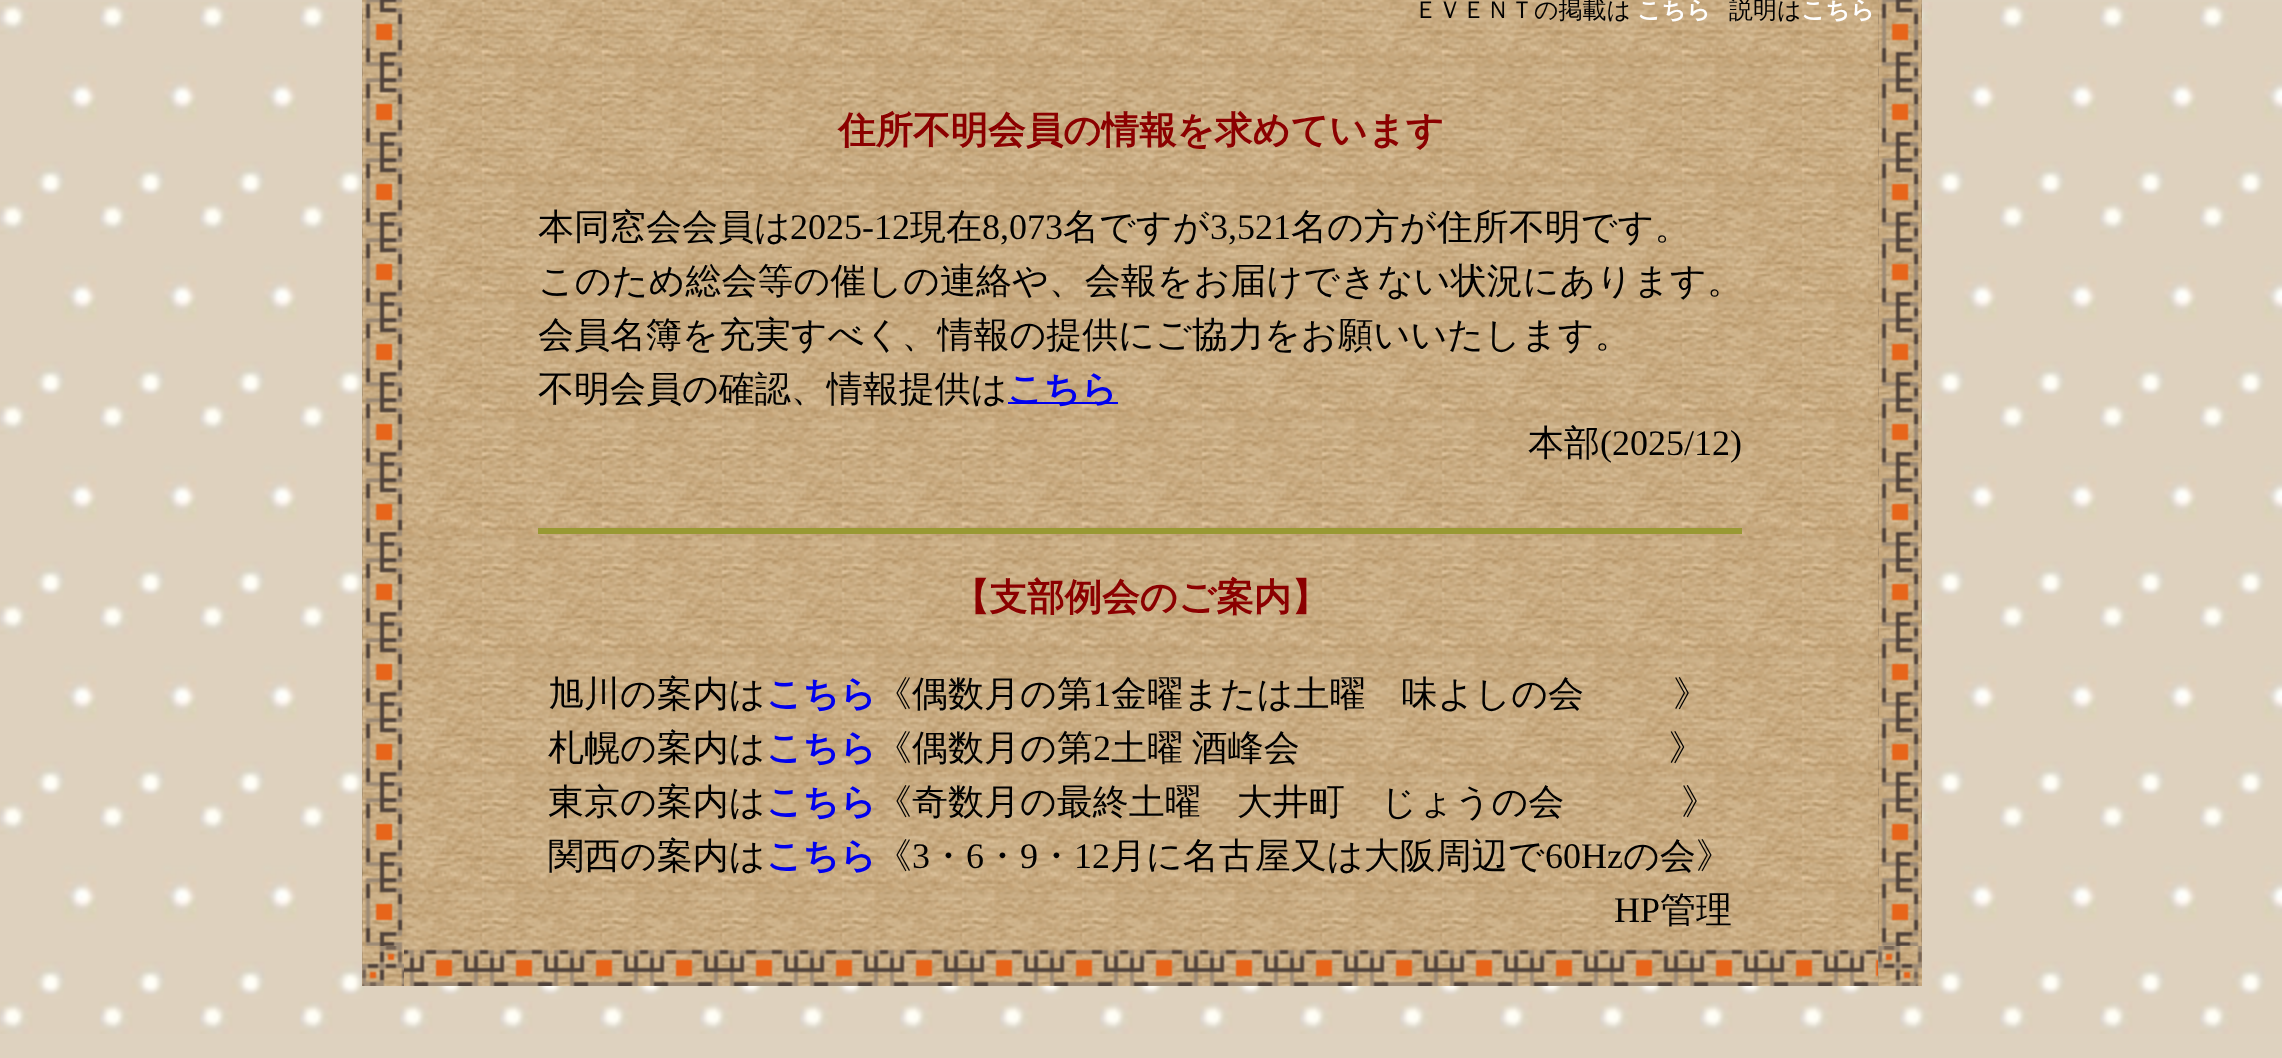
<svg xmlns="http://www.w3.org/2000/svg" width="2282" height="1058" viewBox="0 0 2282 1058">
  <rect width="100%" height="100%" fill="rgb(222,210,191)"/>
  <image x="0" y="2" width="2282" height="1032" href="pic1.png"/>
  <image x="362" y="0" width="1560" height="986" href="pic2.png"/>
  <image x="362" y="0" width="41" height="946" href="pic3.png"/>
  <text x="1414" y="18" font-family="WenQuanYi Zen Hei" font-size="24" font-weight="500" fill="rgb(0,0,0)">ＥＶＥＮＴの掲載は</text>
  <text x="1637" y="18" font-family="WenQuanYi Zen Hei" font-size="24" font-weight="bold" fill="rgb(255,255,255)">こちら</text>
  <text x="1729" y="18" font-family="WenQuanYi Zen Hei" font-size="24" font-weight="500" fill="rgb(0,0,0)">説明は</text>
  <text x="1801" y="18" font-family="WenQuanYi Zen Hei" font-size="24" font-weight="bold" fill="rgb(255,255,255)">こちら</text>
  <image x="1878" y="0" width="44" height="946" href="pic4.png"/>
  <text x="838" y="143" font-family="WenQuanYi Zen Hei" font-size="37.5" font-weight="bold" fill="rgb(139,0,0)">住所不明会員の情報を求めています</text>
  <text x="538" y="239" font-family="WenQuanYi Zen Hei" font-size="36" font-weight="500" fill="rgb(0,0,0)">本同窓会会員は</text>
  <text x="790" y="239" font-family="Liberation Serif" font-size="36" fill="rgb(0,0,0)">2025-12</text>
  <text x="910" y="239" font-family="WenQuanYi Zen Hei" font-size="36" font-weight="500" fill="rgb(0,0,0)">現在</text>
  <text x="982" y="239" font-family="Liberation Serif" font-size="36" fill="rgb(0,0,0)">8,073</text>
  <text x="1063" y="239" font-family="WenQuanYi Zen Hei" font-size="36" font-weight="500" fill="rgb(0,0,0)">名ですが</text>
  <text x="1210" y="239" font-family="Liberation Serif" font-size="36" fill="rgb(0,0,0)">3,521</text>
  <g font-family="WenQuanYi Zen Hei" font-size="36" font-weight="500" fill="rgb(0,0,0)">
    <text x="1291" y="239">名の方が住所不明です。</text>
    <text>
      <tspan x="538" y="293">このため総会等の催しの連絡や、会報をお届けできない状況にあります。</tspan>
      <tspan x="538" y="347">会員名簿を充実すべく、情報の提供にご協力をお願いいたします。</tspan>
      <tspan x="538" y="401">不明会員の確認、情報提供は</tspan>
    </text>
  </g>
  <rect x="1008" y="402" width="110" height="2" fill="rgb(0,0,238)"/>
  <text x="1007" y="401" font-family="WenQuanYi Zen Hei" font-size="36" font-weight="bold" fill="rgb(0,0,238)">こちら</text>
  <text x="1528" y="455" font-family="WenQuanYi Zen Hei" font-size="36" font-weight="500" fill="rgb(0,0,0)">本部</text>
  <text x="1600" y="455" font-family="Liberation Serif" font-size="36" fill="rgb(0,0,0)">(2025/12)</text>
  <rect x="538" y="528" width="1204" height="6" fill="rgb(153,153,51)"/>
  <text x="952" y="610" font-family="WenQuanYi Zen Hei" font-size="37.5" font-weight="bold" fill="rgb(139,0,0)">【支部例会のご案内】</text>
  <text x="548" y="706" font-family="WenQuanYi Zen Hei" font-size="36" font-weight="500" fill="rgb(0,0,0)">旭川の案内は</text>
  <text x="766" y="706" font-family="WenQuanYi Zen Hei" font-size="36" font-weight="bold" fill="rgb(0,0,238)">こちら</text>
  <text x="876" y="706" font-family="WenQuanYi Zen Hei" font-size="36" font-weight="500" fill="rgb(0,0,0)">《偶数月の第</text>
  <text x="1093" y="706" font-family="Liberation Serif" font-size="36" fill="rgb(0,0,0)">1</text>
  <g font-family="WenQuanYi Zen Hei" font-size="36" font-weight="500" fill="rgb(0,0,0)">
    <text x="1111" y="706">金曜または土曜　味よしの会</text>
    <text x="1673" y="706">》</text>
    <text x="548" y="760">札幌の案内は</text>
  </g>
  <text x="766" y="760" font-family="WenQuanYi Zen Hei" font-size="36" font-weight="bold" fill="rgb(0,0,238)">こちら</text>
  <text x="876" y="760" font-family="WenQuanYi Zen Hei" font-size="36" font-weight="500" fill="rgb(0,0,0)">《偶数月の第</text>
  <text x="1093" y="760" font-family="Liberation Serif" font-size="36" fill="rgb(0,0,0)">2</text>
  <g font-family="WenQuanYi Zen Hei" font-size="36" font-weight="500" fill="rgb(0,0,0)">
    <text x="1111" y="760" word-spacing="-2">土曜 酒峰会 　　　　　　　　　　》</text>
    <text x="548" y="814">東京の案内は</text>
  </g>
  <text x="766" y="814" font-family="WenQuanYi Zen Hei" font-size="36" font-weight="bold" fill="rgb(0,0,238)">こちら</text>
  <g font-family="WenQuanYi Zen Hei" font-size="36" font-weight="500" fill="rgb(0,0,0)">
    <text x="876" y="814" word-spacing="-2">《奇数月の最終土曜　大井町　じょうの会　　 　》</text>
    <text x="548" y="868">関西の案内は</text>
  </g>
  <text x="766" y="868" font-family="WenQuanYi Zen Hei" font-size="36" font-weight="bold" fill="rgb(0,0,238)">こちら</text>
  <text x="876" y="868" font-family="WenQuanYi Zen Hei" font-size="36" font-weight="500" fill="rgb(0,0,0)">《</text>
  <text x="912" y="868" font-family="Liberation Serif" font-size="36" fill="rgb(0,0,0)">3</text>
  <text x="930" y="868" font-family="WenQuanYi Zen Hei" font-size="36" font-weight="500" fill="rgb(0,0,0)">・</text>
  <text x="966" y="868" font-family="Liberation Serif" font-size="36" fill="rgb(0,0,0)">6</text>
  <text x="984" y="868" font-family="WenQuanYi Zen Hei" font-size="36" font-weight="500" fill="rgb(0,0,0)">・</text>
  <text x="1020" y="868" font-family="Liberation Serif" font-size="36" fill="rgb(0,0,0)">9</text>
  <text x="1038" y="868" font-family="WenQuanYi Zen Hei" font-size="36" font-weight="500" fill="rgb(0,0,0)">・</text>
  <text x="1074" y="868" font-family="Liberation Serif" font-size="36" fill="rgb(0,0,0)">12</text>
  <text x="1110" y="868" font-family="WenQuanYi Zen Hei" font-size="36" font-weight="500" fill="rgb(0,0,0)">月に名古屋又は大阪周辺で</text>
  <text x="1545" y="868" font-family="Liberation Serif" font-size="36" fill="rgb(0,0,0)">60Hz</text>
  <text x="1623" y="868" font-family="WenQuanYi Zen Hei" font-size="36" font-weight="500" fill="rgb(0,0,0)">の会》</text>
  <text x="1614" y="922" font-family="Liberation Serif" font-size="36" fill="rgb(0,0,0)">HP</text>
  <text x="1660" y="922" font-family="WenQuanYi Zen Hei" font-size="36" font-weight="500" fill="rgb(0,0,0)">管理</text>
  <image x="362" y="946" width="42" height="40" href="pic5.png"/>
  <image x="404" y="949" width="1474" height="37" href="pic6.png"/>
  <image x="1878" y="946" width="44" height="40" href="pic7.png"/>
</svg>
